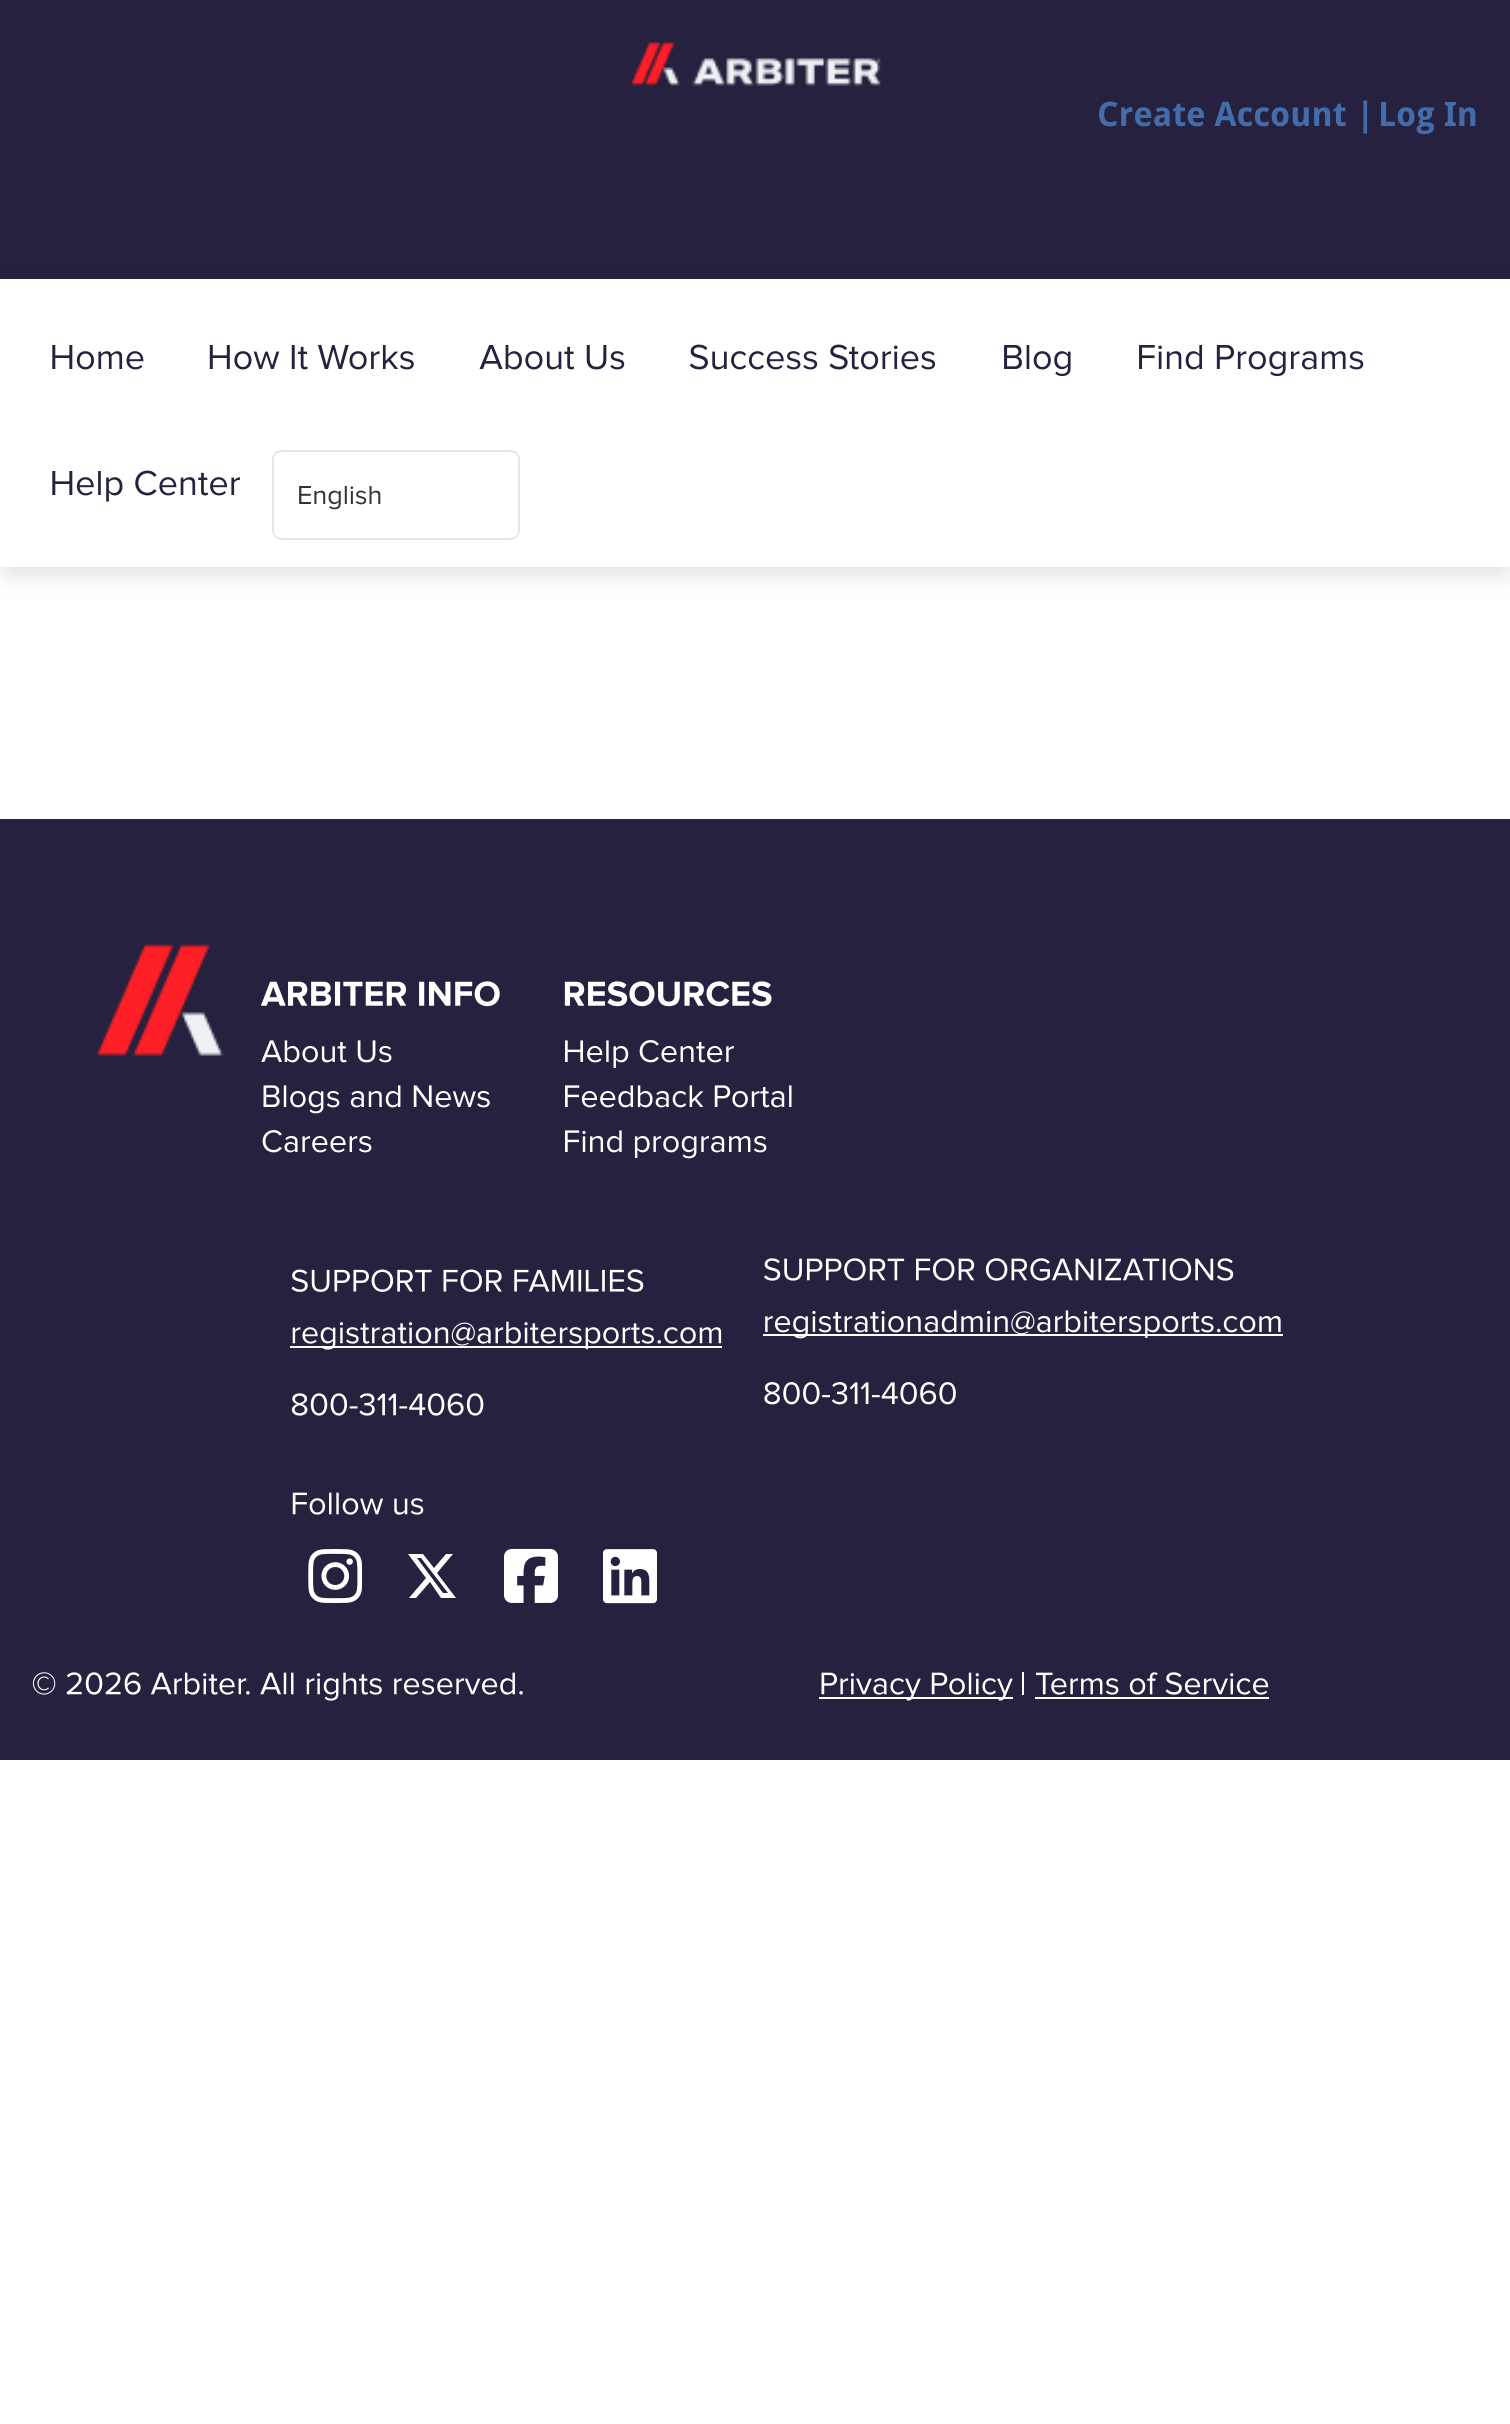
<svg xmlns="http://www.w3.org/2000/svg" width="1510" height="2424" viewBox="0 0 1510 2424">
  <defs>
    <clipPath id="clip1"><path d="M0 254H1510V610H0ZM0 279H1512V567H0Z" clip-rule="evenodd"/></clipPath>
  </defs>
  <rect width="100%" height="100%" fill="rgb(255,255,255)"/>
  <rect x="0" y="0" width="1510" height="279" fill="rgb(38,33,62)"/>
  <image x="630" y="42" width="252" height="44" href="pic1.png"/>
  <g font-family="Droid Sans" font-size="33.75" font-weight="bold" fill="rgb(67,108,171)">
    <text x="1097" y="126">Create Account</text>
    <text x="1356" y="126">|</text>
    <text x="1378" y="126">Log In</text>
  </g>
  <g clip-path="url(#clip1)">
    <rect x="0" y="288" width="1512" height="288" fill="rgba(51,51,51,0.15)" filter="blur(11px)"/>
  </g>
  <image x="52" y="345" width="92" height="25" href="pic2.png"/>
  <image x="209" y="345" width="205" height="25" href="pic3.png"/>
  <image x="479" y="345" width="146" height="25" href="pic4.png"/>
  <image x="690" y="344" width="246" height="26" href="pic5.png"/>
  <image x="1004" y="345" width="67" height="32" href="pic6.png"/>
  <image x="1139" y="345" width="225" height="32" href="pic7.png"/>
  <image x="52" y="470" width="188" height="32" href="pic8.png"/>
  <rect x="273" y="451" width="246" height="88" rx="8" fill="none" stroke="rgb(225,230,235)" stroke-width="2"/>
  <image x="299" y="486" width="82" height="24" href="pic9.png"/>
  <rect x="0" y="819" width="1510" height="941" fill="rgb(38,33,62)"/>
  <image x="96" y="944" width="128" height="112" href="pic10.png"/>
  <image x="260" y="981" width="240" height="26" href="pic11.png"/>
  <image x="261" y="1040" width="131" height="23" href="pic12.png"/>
  <image x="263" y="1085" width="227" height="29" href="pic13.png"/>
  <image x="262" y="1130" width="110" height="23" href="pic14.png"/>
  <image x="564" y="981" width="208" height="26" href="pic15.png"/>
  <image x="565" y="1040" width="169" height="28" href="pic16.png"/>
  <image x="565" y="1085" width="227" height="23" href="pic17.png"/>
  <image x="565" y="1130" width="202" height="29" href="pic18.png"/>
  <image x="291" y="1269" width="353" height="23" href="pic19.png"/>
  <rect x="290" y="1346" width="432" height="2" fill="rgb(255,255,255)"/>
  <image x="292" y="1321" width="430" height="29" href="pic20.png"/>
  <image x="291" y="1393" width="193" height="23" href="pic21.png"/>
  <image x="292" y="1492" width="132" height="23" href="pic22.png"/>
  <image x="308" y="1549" width="54" height="54" href="pic23.png"/>
  <path d="M446 1554H453L437 1573L456 1598H441L430 1582L416 1598H409L426 1578L408 1554H423L434 1568ZM443 1593H448L421 1558H417Z" fill="rgb(255,255,255)"/>
  <image x="504" y="1548" width="54" height="55" href="pic24.png"/>
  <image x="603" y="1549" width="54" height="55" href="pic25.png"/>
  <image x="764" y="1258" width="470" height="23" href="pic26.png"/>
  <rect x="763" y="1334" width="520" height="2" fill="rgb(255,255,255)"/>
  <image x="765" y="1310" width="516" height="29" href="pic27.png"/>
  <image x="764" y="1382" width="192" height="23" href="pic28.png"/>
  <image x="32" y="1672" width="491" height="29" href="pic29.png"/>
  <rect x="819" y="1697" width="194" height="2" fill="rgb(255,255,255)"/>
  <image x="821" y="1672" width="192" height="29" href="pic30.png"/>
  <rect x="1022" y="1672" width="2" height="23" fill="rgb(255,255,255)"/>
  <image x="1036" y="1672" width="233" height="23" href="pic31.png"/>
  <rect x="1035" y="1697" width="234" height="2" fill="rgb(255,255,255)"/>
</svg>
